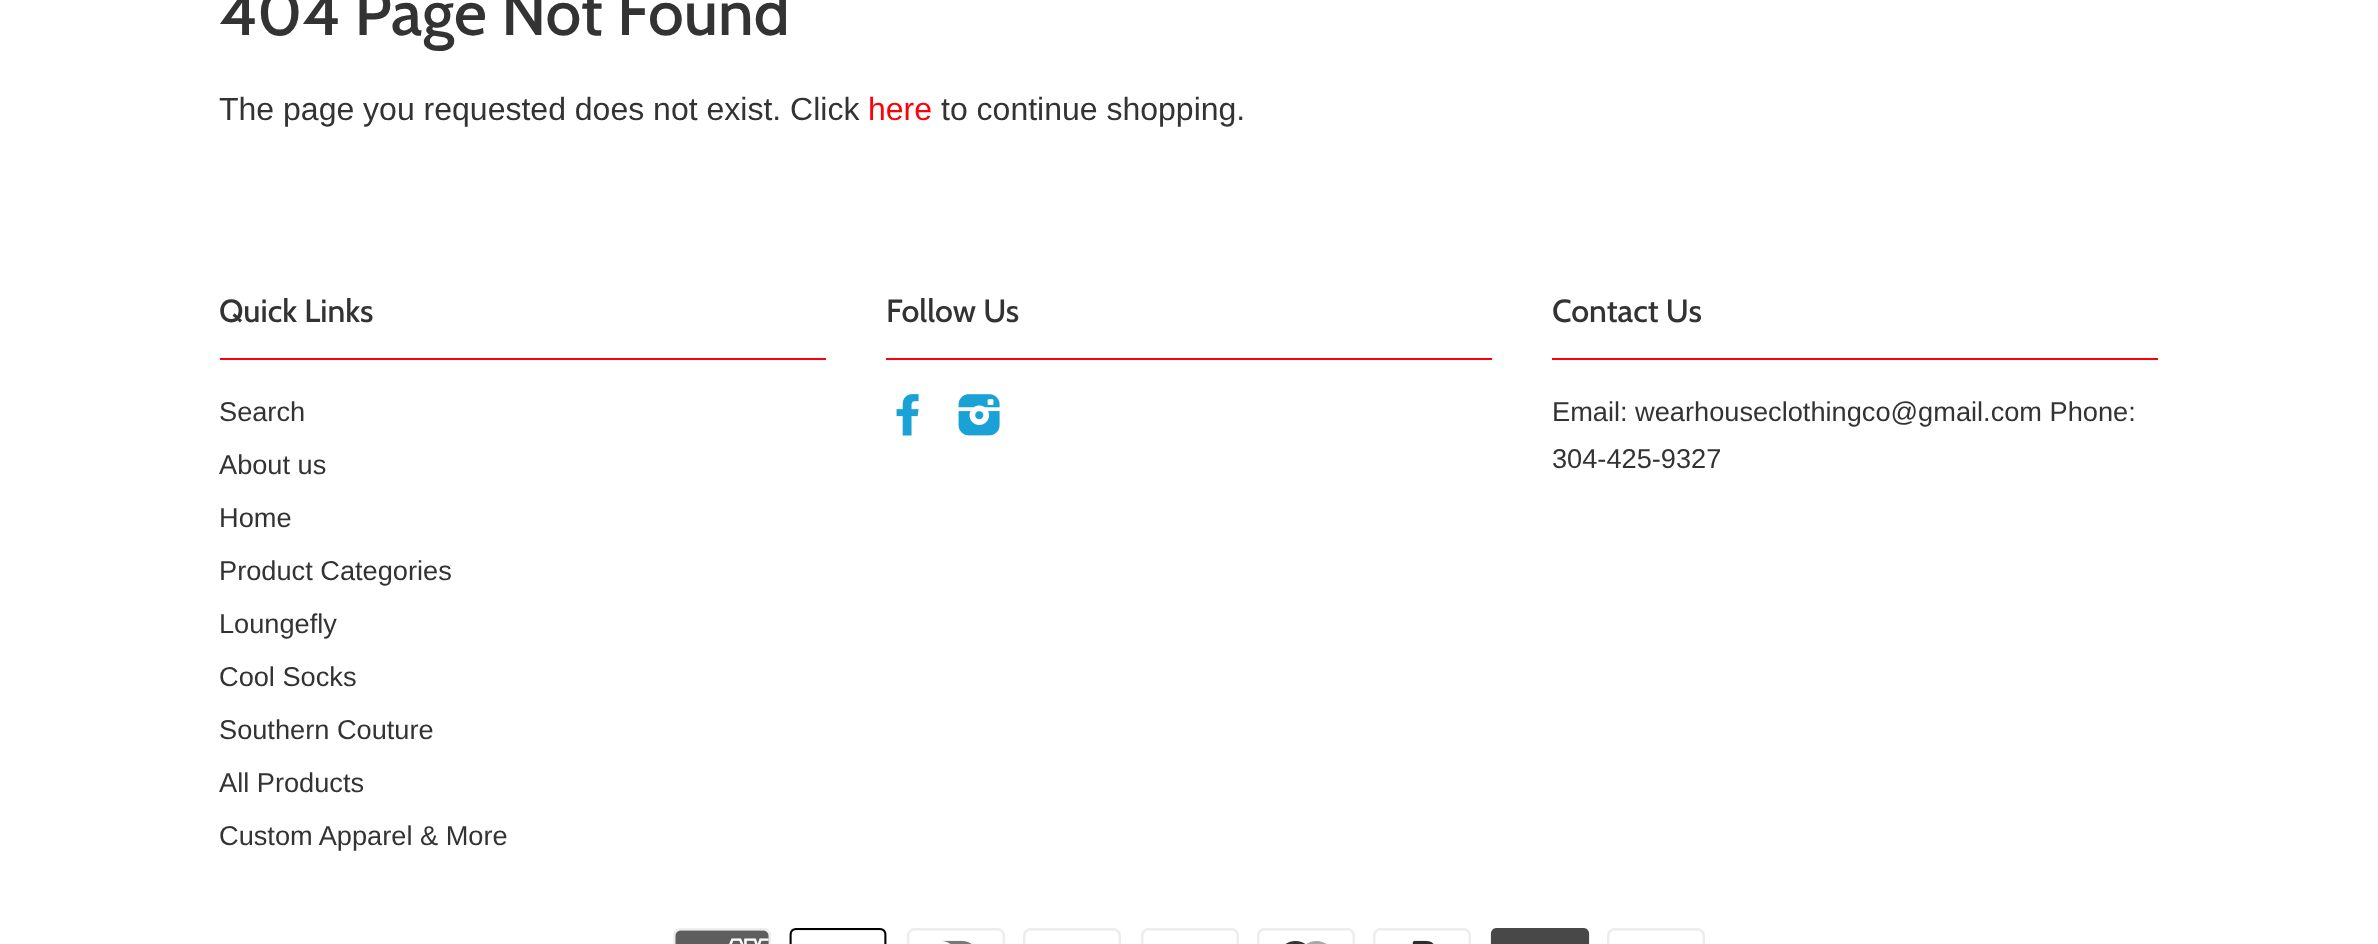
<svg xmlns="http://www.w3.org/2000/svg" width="2378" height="944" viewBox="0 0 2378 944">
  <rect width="100%" height="100%" fill="rgb(255,255,255)"/>
  <text x="219" y="35" font-family="Cabin" font-size="64" font-weight="500" fill="rgb(51,51,51)">404 Page Not Found</text>
  <text x="219" y="120" font-family="Liberation Sans" font-size="32" fill="rgb(51,51,51)">The page you requested does not exist. Click</text>
  <text x="868" y="120" font-family="Liberation Sans" font-size="32" fill="rgb(255,0,10)">here</text>
  <text x="941" y="120" font-family="Liberation Sans" font-size="32" fill="rgb(51,51,51)">to continue shopping.</text>
  <rect x="220" y="358" width="606" height="2" fill="rgb(255,0,10)"/>
  <text x="219" y="322" font-family="Cabin" font-size="32" font-weight="500" fill="rgb(51,51,51)">Quick Links</text>
  <g font-family="Liberation Sans" font-size="27.2" fill="rgb(51,51,51)">
    <text>
      <tspan x="219" y="421">Search</tspan>
      <tspan x="219" y="474">About us</tspan>
      <tspan x="219" y="527">Home</tspan>
      <tspan x="219" y="580">Product Categories</tspan>
      <tspan x="219" y="633">Loungefly</tspan>
      <tspan x="219" y="686">Cool Socks</tspan>
      <tspan x="219" y="739">Southern Couture</tspan>
      <tspan x="219" y="792">All Products</tspan>
      <tspan x="219" y="845">Custom Apparel &amp; More</tspan>
    </text>
  </g>
  <rect x="886" y="358" width="606" height="2" fill="rgb(255,0,10)"/>
  <text x="886" y="322" font-family="Cabin" font-size="32" font-weight="500" fill="rgb(51,51,51)">Follow Us</text>
  <image x="896" y="394" width="23" height="42" href="pic1.png"/>
  <image x="958" y="394" width="42" height="42" href="pic2.png"/>
  <rect x="1552" y="358" width="606" height="2" fill="rgb(255,0,10)"/>
  <text x="1552" y="322" font-family="Cabin" font-size="32" font-weight="500" fill="rgb(51,51,51)">Contact Us</text>
  <g font-family="Liberation Sans" font-size="27.2" fill="rgb(51,51,51)">
    <text>
      <tspan x="1552" y="421">Email: wearhouseclothingco@gmail.com Phone:</tspan>
      <tspan x="1552" y="468">304-425-9327</tspan>
    </text>
  </g>
  <image x="673" y="928" width="98" height="16" href="pic3.png"/>
  <image x="789" y="928" width="98" height="16" href="pic4.png"/>
  <image x="907" y="928" width="98" height="16" href="pic5.png"/>
  <image x="1023" y="928" width="98" height="16" href="pic6.png"/>
  <image x="1141" y="928" width="98" height="16" href="pic6.png"/>
  <image x="1257" y="928" width="98" height="16" href="pic7.png"/>
  <image x="1373" y="928" width="98" height="16" href="pic8.png"/>
  <image x="1490" y="928" width="100" height="16" href="pic9.png"/>
  <image x="1607" y="928" width="98" height="16" href="pic6.png"/>
</svg>
